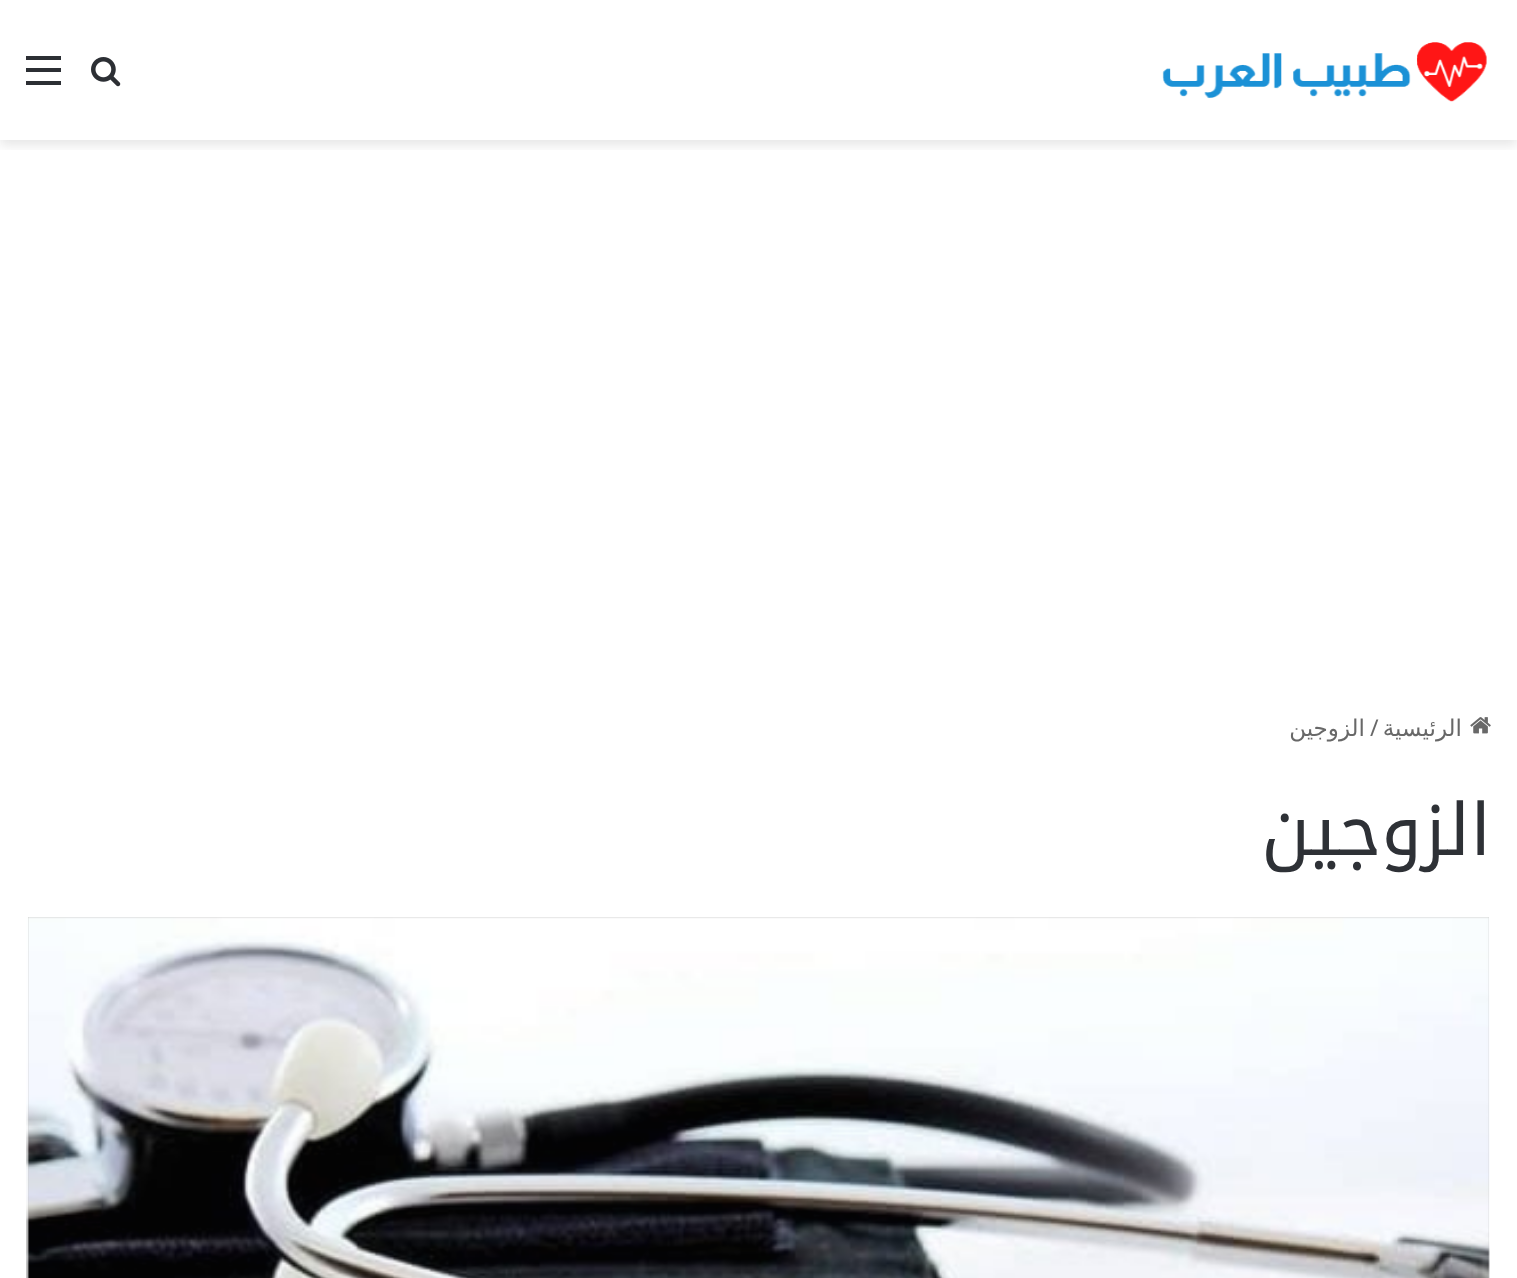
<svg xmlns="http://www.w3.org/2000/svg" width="1517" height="1278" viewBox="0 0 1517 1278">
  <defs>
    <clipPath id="clip1"><rect x="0" y="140" width="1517" height="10"/></clipPath>
  </defs>
  <rect width="100%" height="100%" fill="rgb(255,255,255)"/>
  <g clip-path="url(#clip1)">
    <rect x="0" y="5" width="1517" height="140" fill="rgba(0,0,0,0.1)" filter="blur(6px)"/>
  </g>
  <image x="1162" y="42" width="325" height="60" href="pic1.png"/>
  <image x="91" y="57" width="30" height="30" href="pic2.png"/>
  <rect x="26" y="68" width="35" height="4" fill="rgb(44,47,52)"/>
  <rect x="26" y="56" width="35" height="4" fill="rgb(44,47,52)"/>
  <rect x="26" y="81" width="35" height="4" fill="rgb(44,47,52)"/>
  <image x="1470" y="717" width="21" height="17" href="pic3.png"/>
  <text x="1462" y="736" font-family="DejaVu Sans" font-size="23" direction="rtl" fill="rgb(104,104,104)">الرئيسية</text>
  <text x="1370" y="736" font-family="Noto Kufi Arabic" font-size="23" fill="rgb(104,104,104)">/</text>
  <text x="1365" y="736" font-family="DejaVu Sans" font-size="23" direction="rtl" fill="rgb(104,104,104)">الزوجين</text>
  <text x="1491" y="855" font-family="'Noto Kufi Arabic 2'" font-size="72" direction="rtl" fill="rgb(46,49,54)">الزوجين</text>
  <rect x="28" y="917" width="1461" height="361" fill="rgb(205,205,205)"/>
  <image x="26" y="917" width="1464" height="361" href="pic4.png"/>
</svg>
